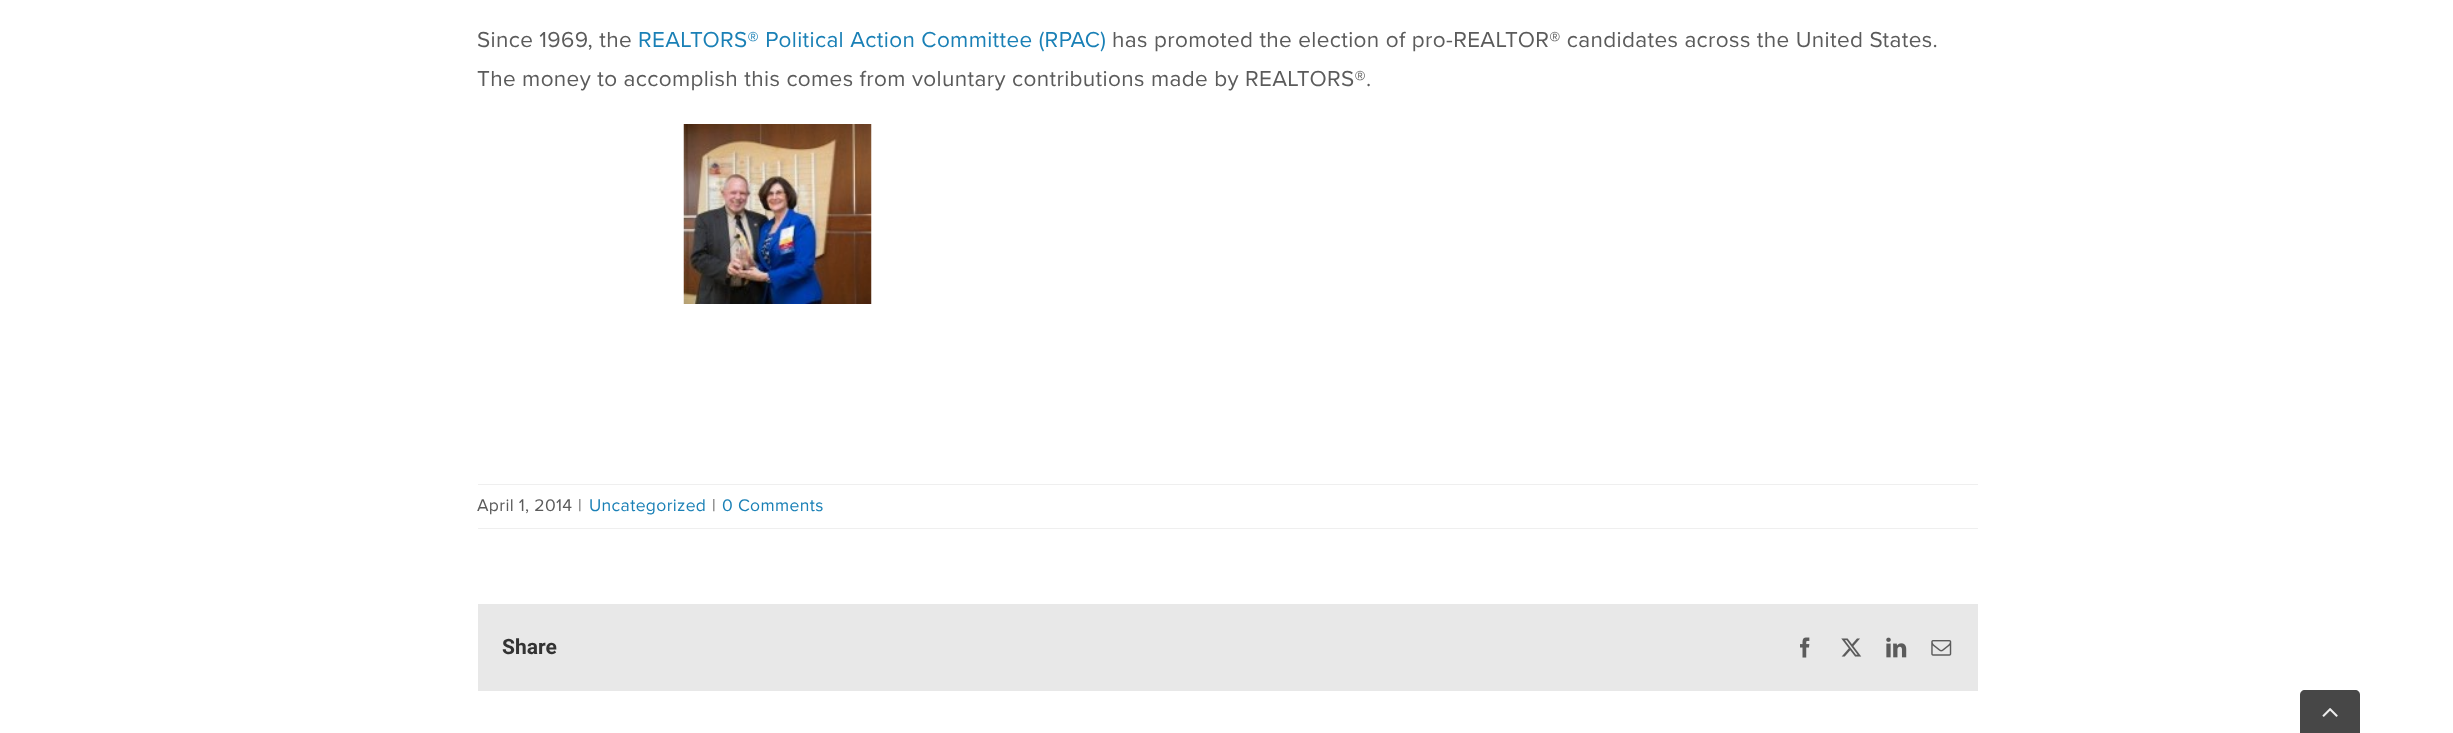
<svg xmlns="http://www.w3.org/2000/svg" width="2453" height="733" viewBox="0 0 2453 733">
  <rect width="100%" height="100%" fill="rgb(255,255,255)"/>
  <text x="477" y="47" font-family="Proxima Nova" font-size="22.5" letter-spacing="0.35" fill="rgb(91,91,91)">Since 1969, the</text>
  <text x="638" y="47" font-family="Proxima Nova" font-size="22.5" letter-spacing="0.35" fill="rgb(26,128,182)">REALTORS® Political Action Committee (RPAC)</text>
  <g font-family="Proxima Nova" font-size="22.5" letter-spacing="0.35" fill="rgb(91,91,91)">
    <text x="1112" y="47">has promoted the election of pro-REALTOR® candidates across the United States.</text>
    <text x="477" y="86">The money to accomplish this comes from voluntary contributions made by REALTORS®.</text>
  </g>
  <image x="683" y="124" width="189" height="180" href="pic1.png"/>
  <rect x="478" y="484" width="1500" height="1" fill="rgb(239,239,239)"/>
  <rect x="478" y="528" width="1500" height="1" fill="rgb(239,239,239)"/>
  <g font-family="Proxima Nova" font-size="17.5" letter-spacing="0.35" fill="rgb(91,91,91)">
    <text x="477" y="511">April 1, 2014</text>
    <text x="578" y="511">|</text>
  </g>
  <text x="589" y="511" font-family="Proxima Nova" font-size="17.5" letter-spacing="0.35" fill="rgb(26,128,182)">Uncategorized</text>
  <text x="712" y="511" font-family="Proxima Nova" font-size="17.5" letter-spacing="0.35" fill="rgb(91,91,91)">|</text>
  <text x="722" y="511" font-family="Proxima Nova" font-size="17.5" letter-spacing="0.35" fill="rgb(26,128,182)">0 Comments</text>
  <rect x="478" y="604" width="1500" height="87" fill="rgb(232,232,232)"/>
  <text x="502" y="654" font-family="Heebo" font-size="21" font-weight="bold" fill="rgb(51,51,51)">Share</text>
  <image x="1800" y="637" width="10" height="21" href="pic2.png"/>
  <image x="1841" y="638" width="21" height="19" href="pic3.png"/>
  <image x="1886" y="637" width="21" height="21" href="pic4.png"/>
  <image x="1931" y="640" width="21" height="16" href="pic5.png"/>
  <path d="M2305 690H2355C2358 690 2360 692 2360 695V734H2300V695C2300 692 2302 690 2305 690Z" fill="rgb(71,71,71)"/>
  <image x="2322" y="708" width="16" height="9" href="pic6.png"/>
</svg>
